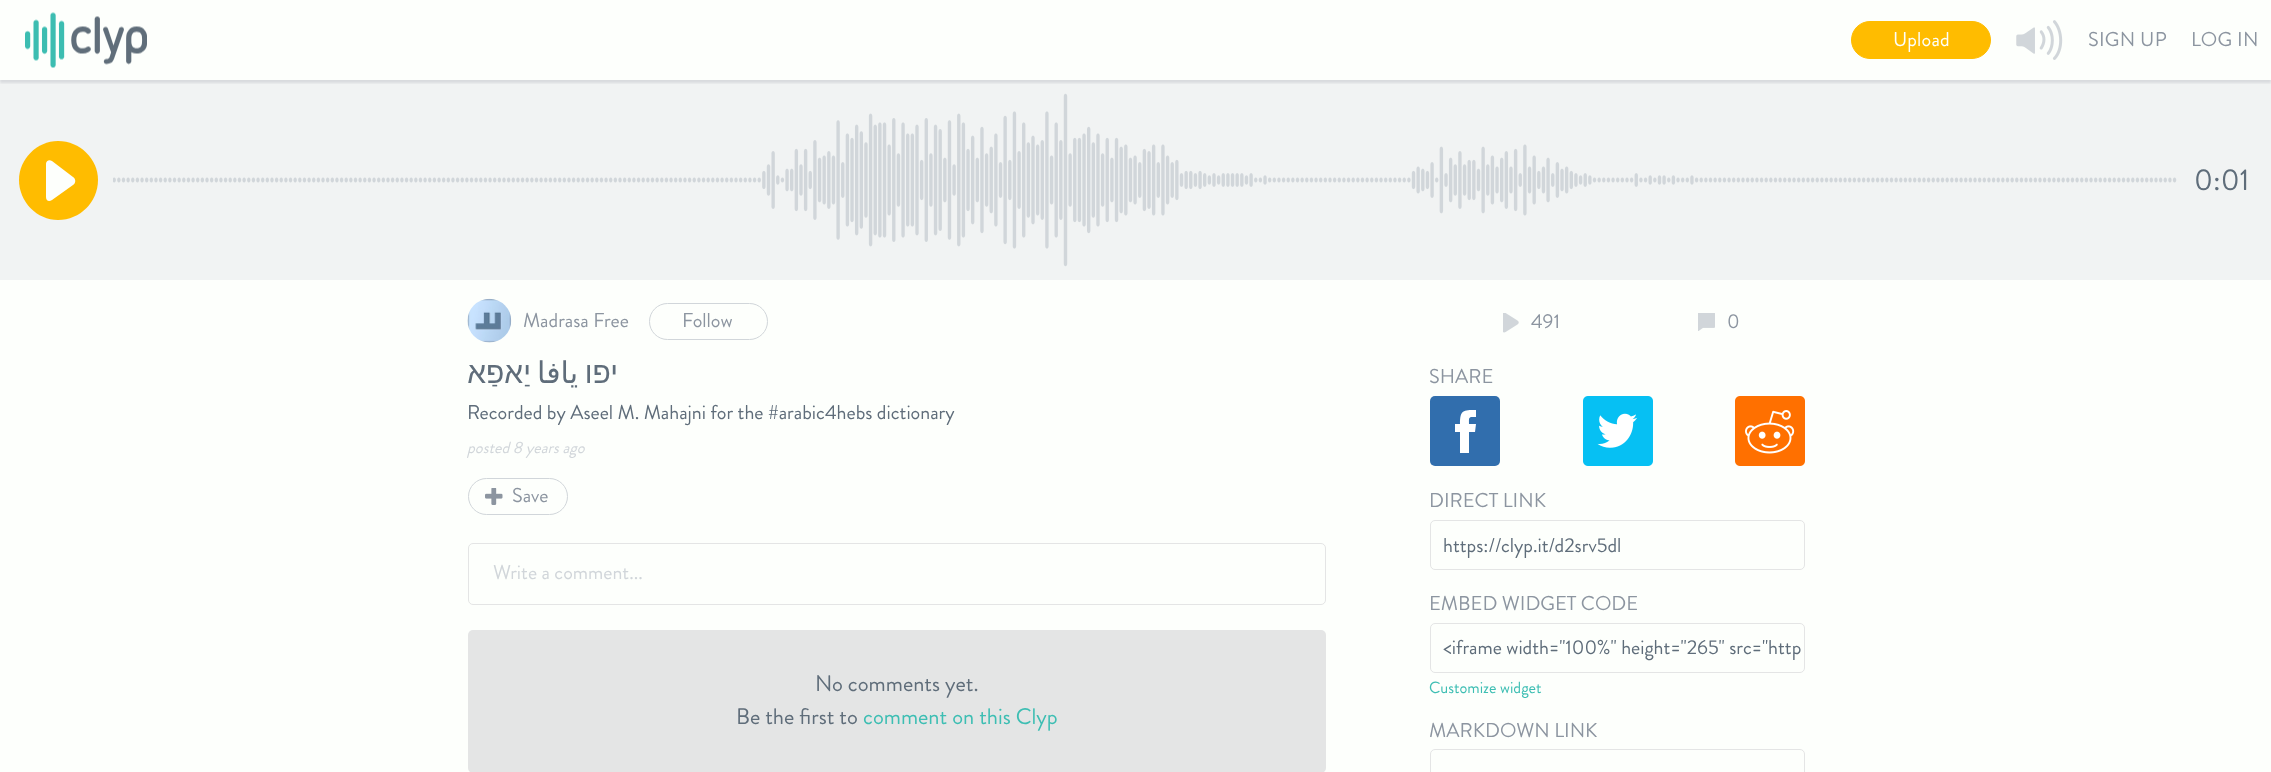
<svg xmlns="http://www.w3.org/2000/svg" width="2271" height="772" viewBox="0 0 2271 772">
  <defs>
    <clipPath id="clip1"><rect x="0" y="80" width="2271" height="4"/></clipPath>
  </defs>
  <rect width="100%" height="100%" fill="rgb(253,255,252)"/>
  <rect x="0" y="80" width="2271" height="200" fill="rgb(241,243,243)"/>
  <g clip-path="url(#clip1)">
    <rect x="0" y="3" width="2271" height="80" fill="rgba(9,12,35,0.1)" filter="blur(1px)"/>
  </g>
  <image x="25" y="12" width="122" height="56" href="pic1.png"/>
  <rect x="1851.5" y="21.5" width="139" height="37" rx="18.5" fill="rgb(255,188,0)" stroke="rgb(255,188,0)"/>
  <text x="1893" y="46" font-family="Brandon Grotesque" font-size="20" letter-spacing="0.25" fill="rgb(253,255,252)">Upload</text>
  <image x="2016" y="20" width="47" height="40" href="pic2.png"/>
  <g font-family="Brandon Grotesque" font-size="20" letter-spacing="0.25" fill="rgb(140,149,160)">
    <text x="2088" y="46">SIGN UP</text>
    <text x="2191" y="46">LOG IN</text>
  </g>
  <path d="M58 141C80 141 98 159 98 180C98 202 80 220 58 220C37 220 19 202 19 180C19 159 37 141 58 141Z" fill="rgb(255,188,0)"/>
  <path d="M73 185C76 183 76 179 73 177L52 161C49 159 46 161 46 164V197C46 201 49 202 52 200Z" fill="rgb(253,255,252)" fill-rule="evenodd"/>
  <image x="113" y="93" width="2064" height="174" href="pic3.png"/>
  <text x="2194" y="190" font-family="Brandon Grotesque" font-size="30" fill="rgb(95,109,122)">0:01</text>
  <image x="467" y="298" width="45" height="45" href="pic4.png"/>
  <text x="523" y="327" font-family="Brandon Grotesque" font-size="20" fill="rgb(140,149,160)">Madrasa Free</text>
  <rect x="649.5" y="303.5" width="118" height="36" rx="18" fill="none" stroke="rgb(209,214,218)"/>
  <text x="682" y="327" font-family="Brandon Grotesque" font-size="20" fill="rgb(140,149,160)">Follow</text>
  <text x="531" y="383" font-family="Liberation Sans" font-size="30" direction="rtl" fill="rgb(95,109,122)">יַאפַא</text>
  <text x="578" y="383" font-family="DejaVu Sans" font-size="30" direction="rtl" fill="rgb(95,109,122)">يافا</text>
  <text x="618" y="383" font-family="Liberation Sans" font-size="30" direction="rtl" fill="rgb(95,109,122)">יפו</text>
  <text x="467" y="419" font-family="Brandon Grotesque" font-size="20" fill="rgb(95,109,122)">Recorded by Aseel M. Mahajni for the #arabic4hebs dictionary</text>
  <text x="467" y="453" font-family="Brandon Grotesque" font-size="16.25" font-style="italic" fill="rgb(209,214,218)">posted 8 years ago</text>
  <rect x="468.5" y="478.5" width="99" height="36" rx="18" fill="none" stroke="rgb(209,214,218)"/>
  <image x="485" y="488" width="18" height="17" href="pic5.png"/>
  <text x="512" y="502" font-family="Brandon Grotesque" font-size="20" fill="rgb(140,149,160)">Save</text>
  <image x="1503" y="313" width="16" height="20" href="pic6.png"/>
  <text x="1531" y="328" font-family="Brandon Grotesque" font-size="20" fill="rgb(140,149,160)">491</text>
  <image x="1698" y="313" width="17" height="18" href="pic7.png"/>
  <g font-family="Brandon Grotesque" font-size="20" fill="rgb(140,149,160)">
    <text x="1727" y="328">0</text>
    <text x="1429" y="383">SHARE</text>
  </g>
  <rect x="1430" y="396" width="70" height="70" rx="5" fill="rgb(49,110,173)"/>
  <path d="M1469 453H1460V432H1455V424H1460C1460 410 1463 410 1476 410V417C1468 417 1469 417 1469 424H1476L1475 432H1469Z" fill="rgb(255,255,255)" fill-rule="evenodd"/>
  <image x="1583" y="396" width="70" height="70" href="pic8.png"/>
  <image x="1735" y="396" width="70" height="70" href="pic9.png"/>
  <text x="1429" y="507" font-family="Brandon Grotesque" font-size="20" fill="rgb(140,149,160)">DIRECT LINK</text>
  <rect x="1430.5" y="520.5" width="374" height="49" rx="4.5" fill="none" stroke="rgb(228,229,229)"/>
  <text x="1443" y="552" font-family="Brandon Grotesque" font-size="20" fill="rgb(95,109,122)">https://clyp.it/d2srv5dl</text>
  <text x="1429" y="610" font-family="Brandon Grotesque" font-size="20" fill="rgb(140,149,160)">EMBED WIDGET CODE</text>
  <rect x="1430.5" y="623.5" width="374" height="49" rx="4.5" fill="none" stroke="rgb(228,229,229)"/>
  <text x="1443" y="654" font-family="Brandon Grotesque" font-size="20" fill="rgb(95,109,122)">&lt;iframe width="100%" height="265" src="http</text>
  <text x="1429" y="693" font-family="Brandon Grotesque" font-size="16.25" fill="rgb(61,190,179)">Customize widget</text>
  <text x="1429" y="737" font-family="Brandon Grotesque" font-size="20" fill="rgb(140,149,160)">MARKDOWN LINK</text>
  <rect x="1430.5" y="749.5" width="374" height="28" rx="4.5" fill="none" stroke="rgb(228,229,229)"/>
  <rect x="468.5" y="543.5" width="857" height="61" rx="4.5" fill="none" stroke="rgb(228,229,229)"/>
  <text x="493" y="579" font-family="Brandon Grotesque" font-size="20" fill="rgb(209,214,218)">Write a comment...</text>
  <rect x="468" y="630" width="858" height="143" rx="5" fill="rgb(228,229,229)"/>
  <g font-family="Brandon Grotesque" font-size="22.5" fill="rgb(95,109,122)">
    <text x="815" y="691">No comments yet.</text>
    <text x="736" y="724">Be the first to</text>
  </g>
  <text x="863" y="724" font-family="Brandon Grotesque" font-size="22.5" fill="rgb(61,190,179)">comment on this Clyp</text>
</svg>
